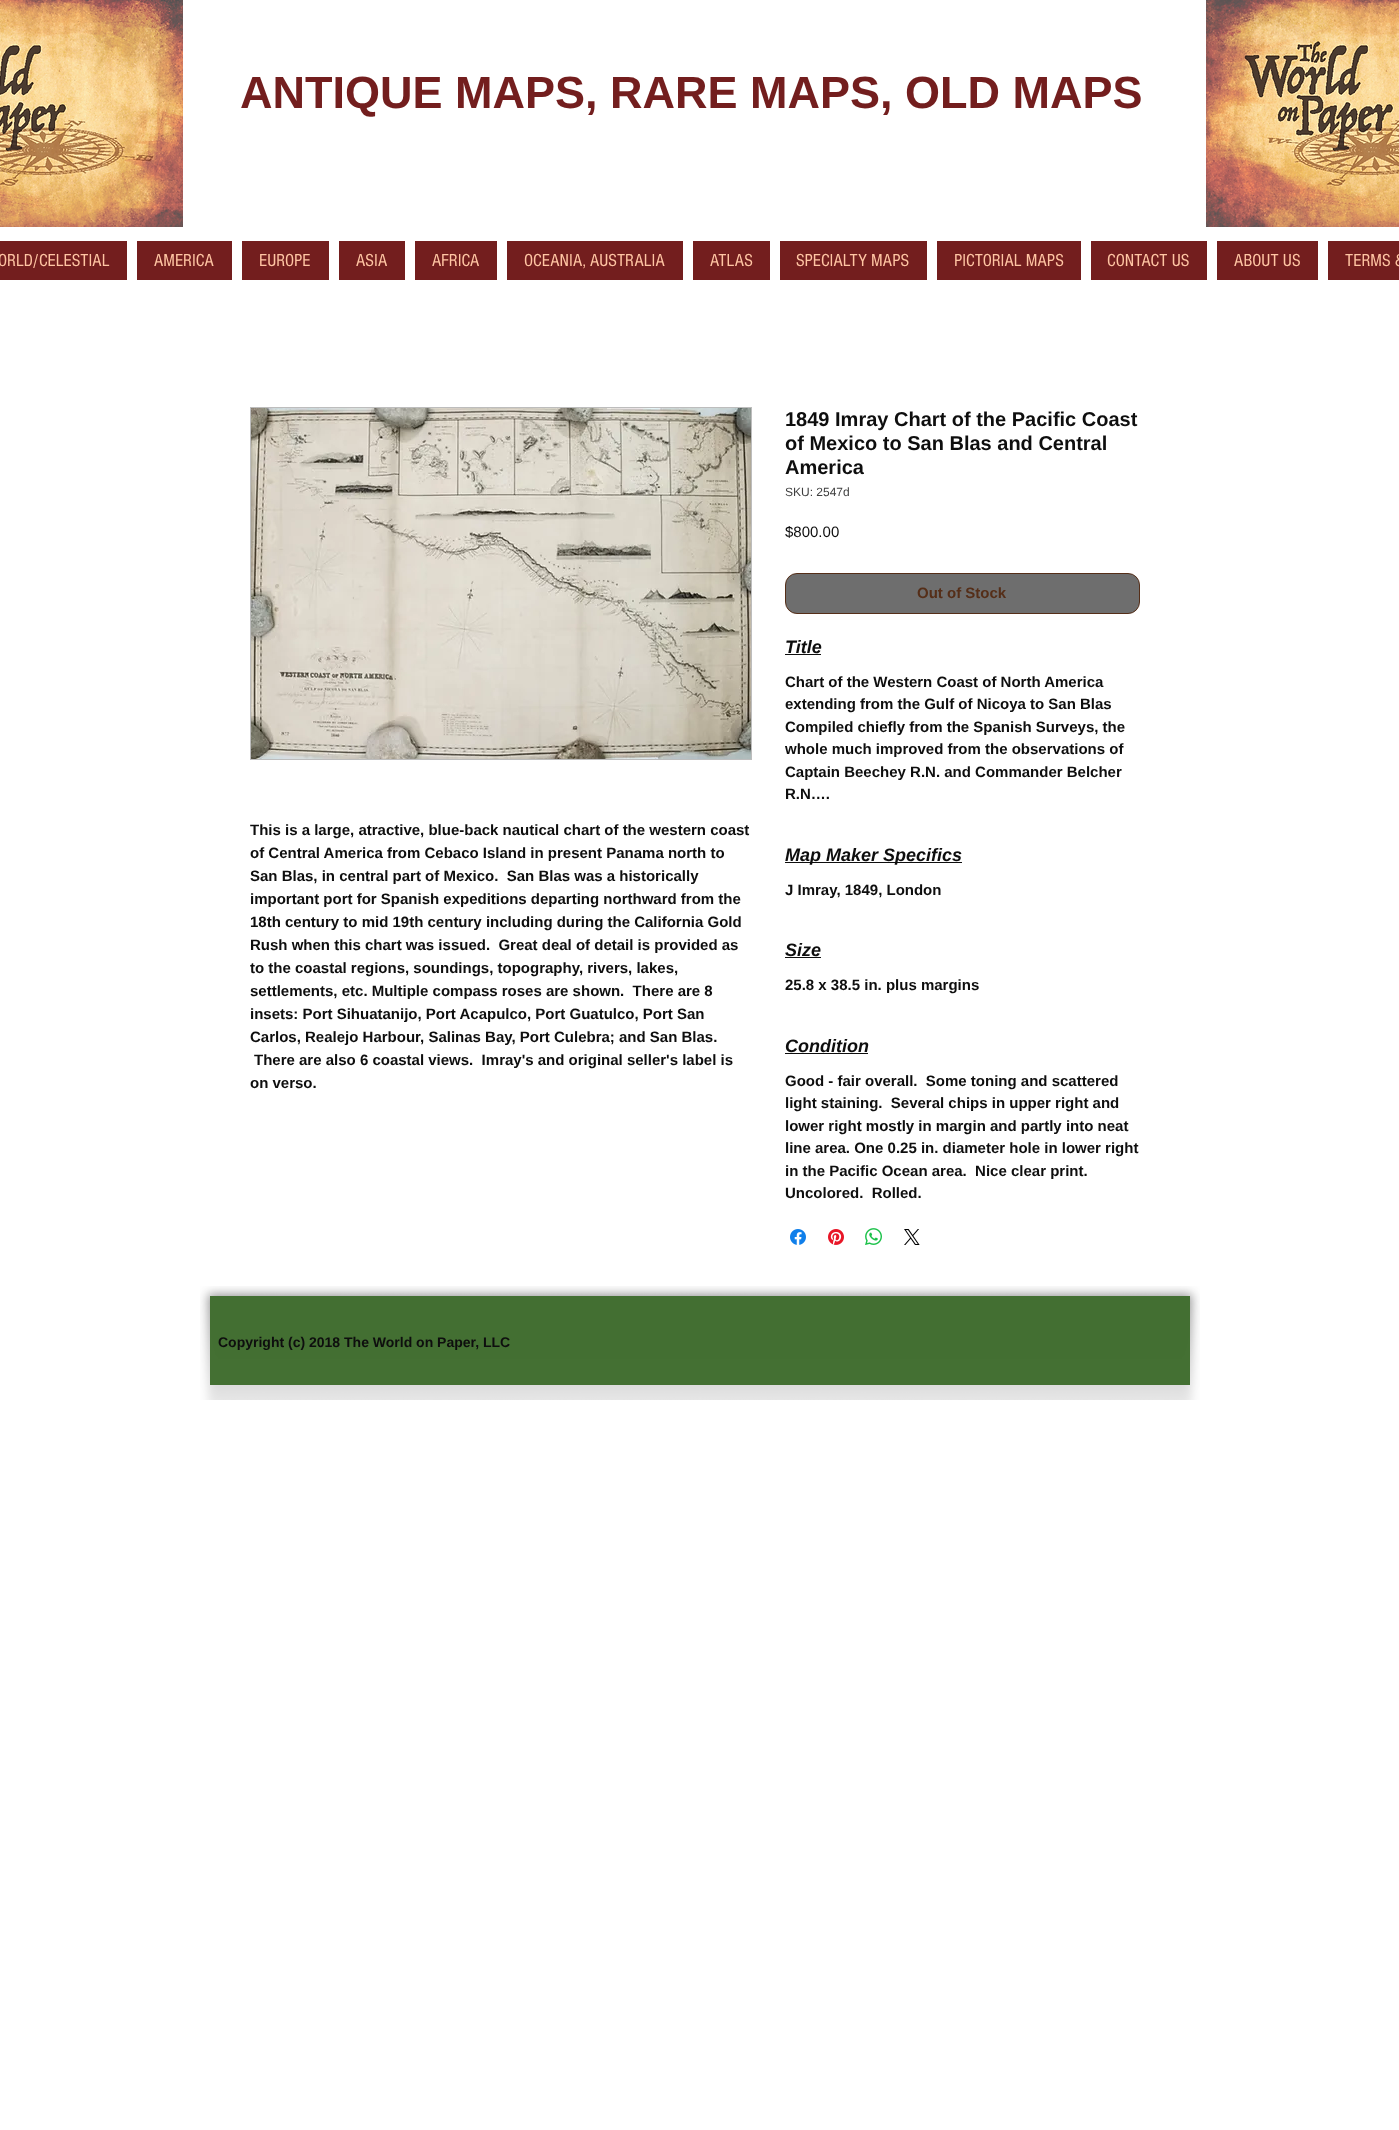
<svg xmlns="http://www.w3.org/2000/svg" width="1399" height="2130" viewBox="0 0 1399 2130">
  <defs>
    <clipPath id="clip1"><rect x="250" y="818" width="500" height="276"/></clipPath>
  </defs>
  <rect width="100%" height="100%" fill="rgb(255,255,255)"/>
  <image x="0" y="0" width="183" height="227" href="pic1.png"/>
  <text x="240" y="108" font-family="Liberation Sans" font-size="45" font-weight="bold" fill="rgb(115,30,30)">ANTIQUE MAPS, RARE MAPS, OLD MAPS</text>
  <image x="1206" y="0" width="193" height="227" href="pic2.png"/>
  <rect x="0" y="241" width="127" height="39" fill="rgb(115,30,30)"/>
  <text x="-2" y="266" font-family="'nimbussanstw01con'" font-size="18" fill="rgb(255,197,163)">ORLD/CELESTIAL</text>
  <rect x="137" y="241" width="95" height="39" fill="rgb(115,30,30)"/>
  <text x="154" y="266" font-family="'nimbussanstw01con'" font-size="18" fill="rgb(255,197,163)">AMERICA</text>
  <rect x="242" y="241" width="87" height="39" fill="rgb(115,30,30)"/>
  <text x="259" y="266" font-family="'nimbussanstw01con'" font-size="18" fill="rgb(255,197,163)">EUROPE</text>
  <rect x="339" y="241" width="66" height="39" fill="rgb(115,30,30)"/>
  <text x="356" y="266" font-family="'nimbussanstw01con'" font-size="18" fill="rgb(255,197,163)">ASIA</text>
  <rect x="415" y="241" width="82" height="39" fill="rgb(115,30,30)"/>
  <text x="432" y="266" font-family="'nimbussanstw01con'" font-size="18" fill="rgb(255,197,163)">AFRICA</text>
  <rect x="507" y="241" width="176" height="39" fill="rgb(115,30,30)"/>
  <text x="524" y="266" font-family="'nimbussanstw01con'" font-size="18" fill="rgb(255,197,163)">OCEANIA, AUSTRALIA</text>
  <rect x="693" y="241" width="77" height="39" fill="rgb(115,30,30)"/>
  <text x="710" y="266" font-family="'nimbussanstw01con'" font-size="18" fill="rgb(255,197,163)">ATLAS</text>
  <rect x="780" y="241" width="147" height="39" fill="rgb(115,30,30)"/>
  <text x="796" y="266" font-family="'nimbussanstw01con'" font-size="18" fill="rgb(255,197,163)">SPECIALTY MAPS</text>
  <rect x="937" y="241" width="144" height="39" fill="rgb(115,30,30)"/>
  <text x="954" y="266" font-family="'nimbussanstw01con'" font-size="18" fill="rgb(255,197,163)">PICTORIAL MAPS</text>
  <rect x="1091" y="241" width="116" height="39" fill="rgb(115,30,30)"/>
  <text x="1107" y="266" font-family="'nimbussanstw01con'" font-size="18" fill="rgb(255,197,163)">CONTACT US</text>
  <rect x="1217" y="241" width="101" height="39" fill="rgb(115,30,30)"/>
  <text x="1234" y="266" font-family="'nimbussanstw01con'" font-size="18" fill="rgb(255,197,163)">ABOUT US</text>
  <rect x="1328" y="241" width="71" height="39" fill="rgb(115,30,30)"/>
  <text x="1345" y="266" font-family="'nimbussanstw01con'" font-size="18" fill="rgb(255,197,163)">TERMS &amp;</text>
  <rect x="250.5" y="407.5" width="501" height="352" fill="none" stroke="rgb(189,189,189)"/>
  <image x="251" y="408" width="500" height="351" href="pic3.png"/>
  <g clip-path="url(#clip1)">
    <text x="250" y="835" font-family="Liberation Sans" font-size="15" font-weight="bold" fill="rgb(14,14,14)">This is a large, atractive, blue-back nautical chart of the western coast</text>
  </g>
  <g font-family="Liberation Sans" font-size="15" font-weight="bold" fill="rgb(14,14,14)">
    <text xml:space="preserve"><tspan x="250" y="858">of Central America from Cebaco Island in present Panama north to</tspan><tspan x="250" y="881">San Blas, in central part of Mexico.  San Blas was a historically</tspan><tspan x="250" y="904">important port for Spanish expeditions departing northward from the</tspan><tspan x="250" y="927">18th century to mid 19th century including during the California Gold</tspan><tspan x="250" y="950">Rush when this chart was issued.  Great deal of detail is provided as</tspan><tspan x="250" y="973">to the coastal regions, soundings, topography, rivers, lakes,</tspan><tspan x="250" y="996">settlements, etc. Multiple compass roses are shown.  There are 8</tspan><tspan x="250" y="1019">insets: Port Sihuatanijo, Port Acapulco, Port Guatulco, Port San</tspan><tspan x="250" y="1042">Carlos, Realejo Harbour, Salinas Bay, Port Culebra; and San Blas.</tspan></text>
    <text x="254" y="1065" xml:space="preserve">There are also 6 coastal views.  Imray's and original seller's label is</text>
    <text x="250" y="1088">on verso.</text>
  </g>
  <g font-family="Liberation Sans" font-size="20" font-weight="bold" fill="rgb(14,14,14)">
    <text>
      <tspan x="785" y="426">1849 Imray Chart of the Pacific Coast</tspan>
      <tspan x="785" y="450">of Mexico to San Blas and Central</tspan>
      <tspan x="785" y="474">America</tspan>
    </text>
  </g>
  <text x="785" y="496" font-family="Liberation Sans" font-size="12" fill="rgb(62,62,62)">SKU: 2547d</text>
  <text x="785" y="537" font-family="Liberation Sans" font-size="15" fill="rgb(14,14,14)">$800.00</text>
  <rect x="785.5" y="573.5" width="354" height="40" rx="11.5" fill="rgb(110,110,110)" stroke="rgb(85,46,24)"/>
  <text x="917" y="598" font-family="Liberation Sans" font-size="15" font-weight="bold" fill="rgb(85,46,24)">Out of Stock</text>
  <text x="785" y="653" font-family="Liberation Sans" font-size="18" font-weight="bold" font-style="italic" fill="rgb(14,14,14)">Title</text>
  <rect x="785" y="654" width="36" height="1" fill="rgb(14,14,14)"/>
  <g font-family="Liberation Sans" font-size="15" font-weight="bold" fill="rgb(14,14,14)">
    <text>
      <tspan x="785" y="687">Chart of the Western Coast of North America</tspan>
      <tspan x="785" y="709">extending from the Gulf of Nicoya to San Blas</tspan>
      <tspan x="785" y="732">Compiled chiefly from the Spanish Surveys, the</tspan>
      <tspan x="785" y="754">whole much improved from the observations of</tspan>
      <tspan x="785" y="777">Captain Beechey R.N. and Commander Belcher</tspan>
      <tspan x="785" y="799">R.N….</tspan>
    </text>
  </g>
  <rect x="785" y="862" width="177" height="1" fill="rgb(14,14,14)"/>
  <text x="785" y="861" font-family="Liberation Sans" font-size="18" font-weight="bold" font-style="italic" fill="rgb(14,14,14)">Map Maker Specifics</text>
  <text x="785" y="895" font-family="Liberation Sans" font-size="15" font-weight="bold" fill="rgb(14,14,14)">J Imray, 1849, London</text>
  <text x="785" y="956" font-family="Liberation Sans" font-size="18" font-weight="bold" font-style="italic" fill="rgb(14,14,14)">Size</text>
  <rect x="785" y="957" width="36" height="1" fill="rgb(14,14,14)"/>
  <text x="785" y="990" font-family="Liberation Sans" font-size="15" font-weight="bold" fill="rgb(14,14,14)">25.8 x 38.5 in. plus margins</text>
  <text x="785" y="1052" font-family="Liberation Sans" font-size="18" font-weight="bold" font-style="italic" fill="rgb(14,14,14)">Condition</text>
  <rect x="785" y="1053" width="83" height="1" fill="rgb(14,14,14)"/>
  <g font-family="Liberation Sans" font-size="15" font-weight="bold" fill="rgb(14,14,14)">
    <text xml:space="preserve"><tspan x="785" y="1086">Good - fair overall.  Some toning and scattered</tspan><tspan x="785" y="1108">light staining.  Several chips in upper right and</tspan><tspan x="785" y="1131">lower right mostly in margin and partly into neat</tspan><tspan x="785" y="1153">line area. One 0.25 in. diameter hole in lower right</tspan><tspan x="785" y="1176">in the Pacific Ocean area.  Nice clear print.</tspan><tspan x="785" y="1198">Uncolored.  Rolled.</tspan></text>
  </g>
  <image x="790" y="1229" width="16" height="16" href="pic4.png"/>
  <image x="828" y="1229" width="16" height="16" href="pic5.png"/>
  <image x="865" y="1228" width="17" height="17" href="pic6.png"/>
  <image x="904" y="1229" width="16" height="16" href="pic7.png"/>
  <rect x="210" y="1296" width="980" height="89" fill="rgb(14,14,14)"/>
  <image x="200" y="1286" width="45" height="114" href="pic8.png"/>
  <image x="245" y="1286" width="910" height="114" href="pic9.png"/>
  <image x="1155" y="1286" width="45" height="114" href="pic10.png"/>
  <rect x="210" y="1296" width="980" height="89" fill="rgba(104,176,77,0.61)"/>
  <text x="218" y="1347" font-family="Liberation Sans" font-size="14" font-weight="bold" fill="rgb(14,14,14)">Copyright (c) 2018 The World on Paper, LLC</text>
</svg>
